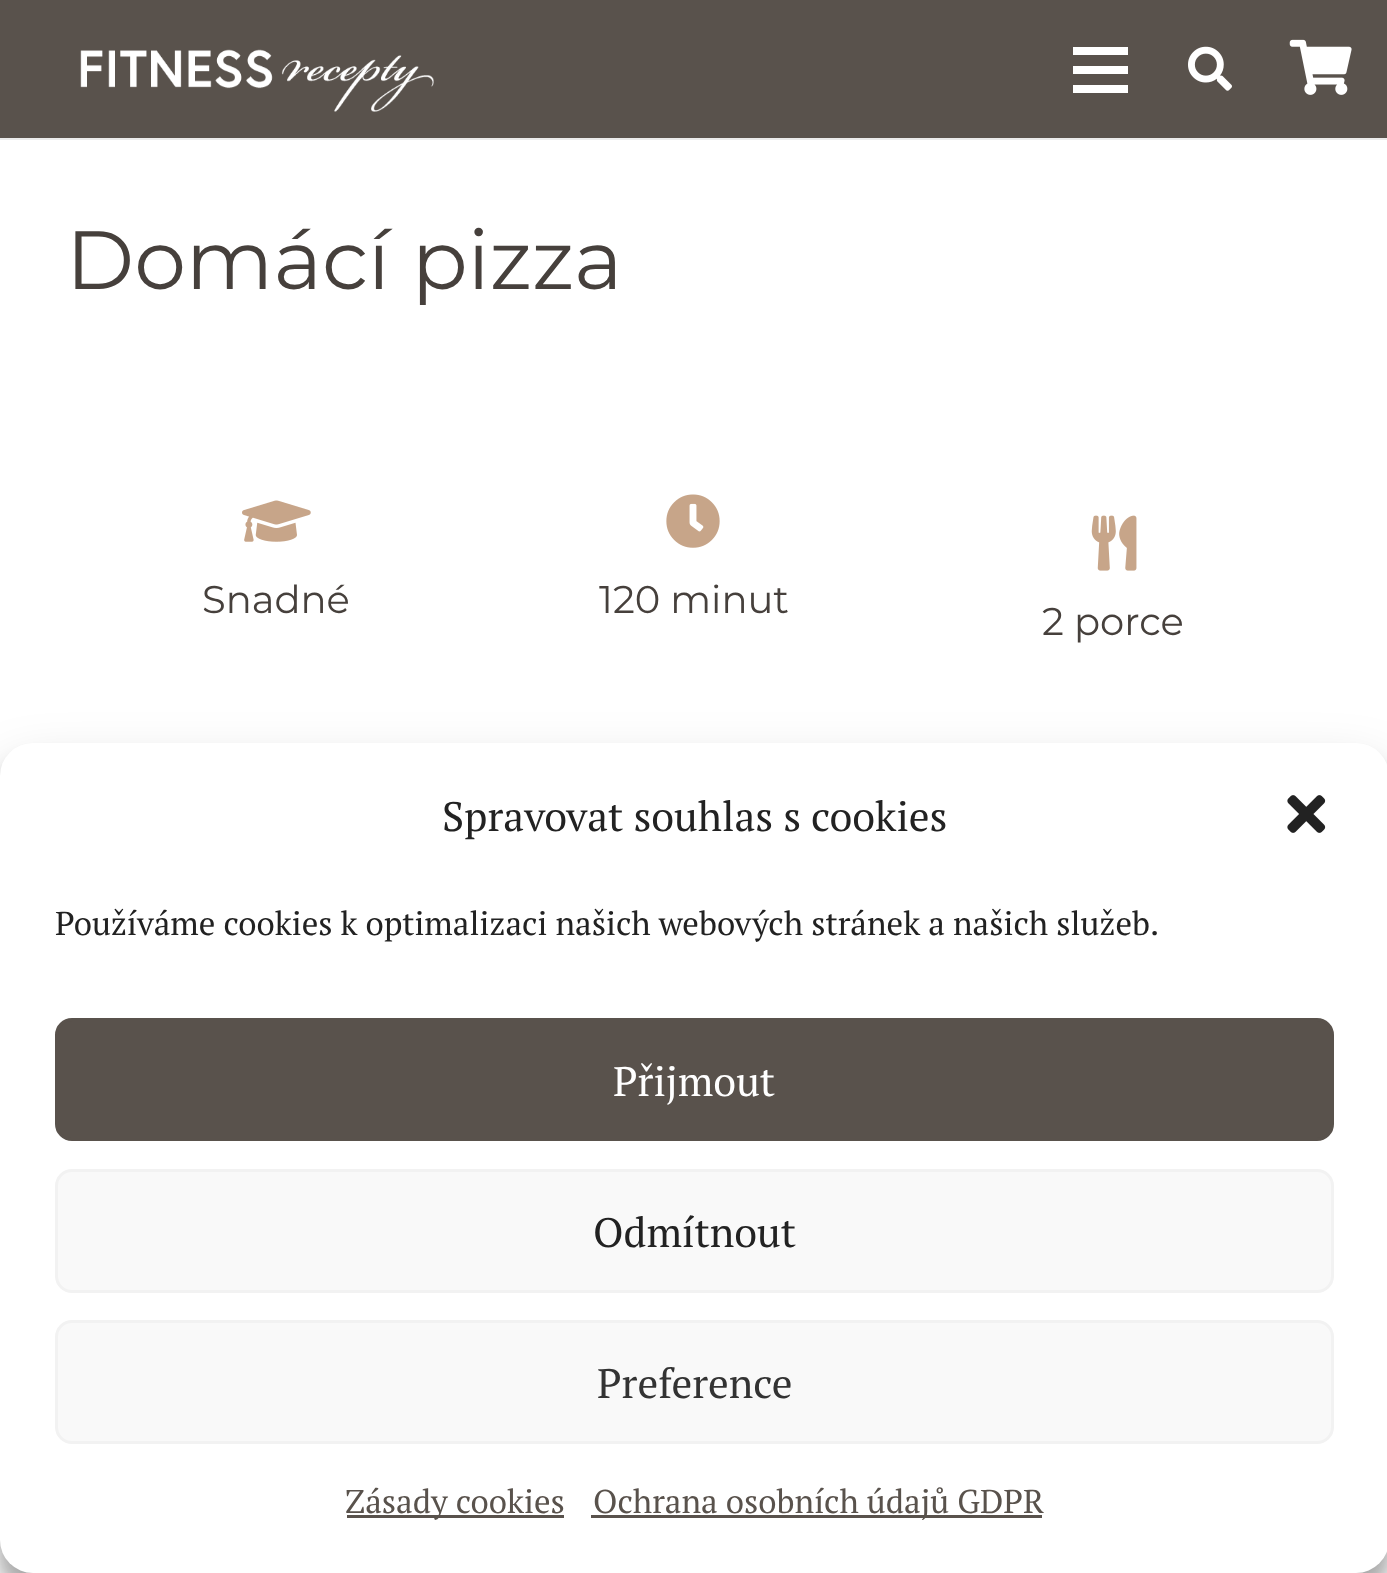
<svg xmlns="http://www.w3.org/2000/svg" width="1387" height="1573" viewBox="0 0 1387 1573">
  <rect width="100%" height="100%" fill="rgb(255,255,255)"/>
  <path d="M0 138V140H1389V3V138Z" fill="rgb(235,235,235)"/>
  <rect x="0" y="0" width="1387" height="138" fill="rgb(89,82,76)"/>
  <image x="80" y="49" width="354" height="63" href="pic1.png"/>
  <rect x="1073" y="66" width="55" height="8" fill="rgb(255,255,255)"/>
  <rect x="1073" y="47" width="55" height="8" fill="rgb(255,255,255)"/>
  <rect x="1073" y="85" width="55" height="8" fill="rgb(255,255,255)"/>
  <image x="1188" y="46" width="44" height="45" href="pic2.png"/>
  <image x="1289" y="39" width="63" height="56" href="pic3.png"/>
  <text x="66" y="289" font-family="Montserrat" font-size="82.5" fill="rgb(70,64,60)">Domácí pizza</text>
  <image x="242" y="500" width="69" height="42" href="pic4.png"/>
  <text x="202" y="613" font-family="Montserrat" font-size="38.5" fill="rgb(70,64,60)">Snadné</text>
  <image x="666" y="494" width="54" height="54" href="pic5.png"/>
  <text x="599" y="613" font-family="Montserrat" font-size="38.5" fill="rgb(70,64,60)">120 minut</text>
  <image x="1091" y="515" width="46" height="56" href="pic6.png"/>
  <text x="1042" y="635" font-family="Montserrat" font-size="38.5" fill="rgb(70,64,60)">2 porce</text>
  <rect x="0" y="759" width="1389" height="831" rx="33" fill="rgba(0,0,0,0.23)" filter="blur(8px)"/>
  <rect x="0" y="770" width="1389" height="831" rx="33" fill="rgba(0,0,0,0.19)" filter="blur(27.5px)"/>
  <rect x="0" y="743" width="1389" height="830" rx="33" fill="rgb(255,255,255)"/>
  <text x="442" y="831" font-family="PT Serif" font-size="41.25" fill="rgb(34,34,34)">Spravovat souhlas s cookies</text>
  <image x="1287" y="795" width="39" height="38" href="pic7.png"/>
  <text x="55" y="935" font-family="PT Serif" font-size="33" fill="rgb(34,34,34)">Používáme cookies k optimalizaci našich webových stránek a našich služeb.</text>
  <rect x="56.5" y="1019.5" width="1276" height="120" rx="15.5" fill="rgb(89,82,76)" stroke="rgb(89,82,76)" stroke-width="3"/>
  <text x="613" y="1096" font-family="PT Serif" font-size="41.25" fill="rgb(255,255,255)">Přijmout</text>
  <rect x="56.5" y="1170.5" width="1276" height="121" rx="15.5" fill="rgb(249,249,249)" stroke="rgb(242,242,242)" stroke-width="3"/>
  <text x="593" y="1247" font-family="PT Serif" font-size="41.25" fill="rgb(34,34,34)">Odmítnout</text>
  <rect x="56.5" y="1321.5" width="1276" height="121" rx="15.5" fill="rgb(249,249,249)" stroke="rgb(242,242,242)" stroke-width="3"/>
  <text x="597" y="1398" font-family="PT Serif" font-size="41.25" fill="rgb(51,51,51)">Preference</text>
  <rect x="347" y="1515" width="217" height="3" fill="rgb(89,82,76)"/>
  <text x="345" y="1513" font-family="PT Serif" font-size="33" fill="rgb(89,82,76)">Zásady cookies</text>
  <rect x="591" y="1515" width="451" height="3" fill="rgb(89,82,76)"/>
  <text x="593" y="1513" font-family="PT Serif" font-size="33" fill="rgb(89,82,76)">Ochrana osobních údajů GDPR</text>
</svg>
